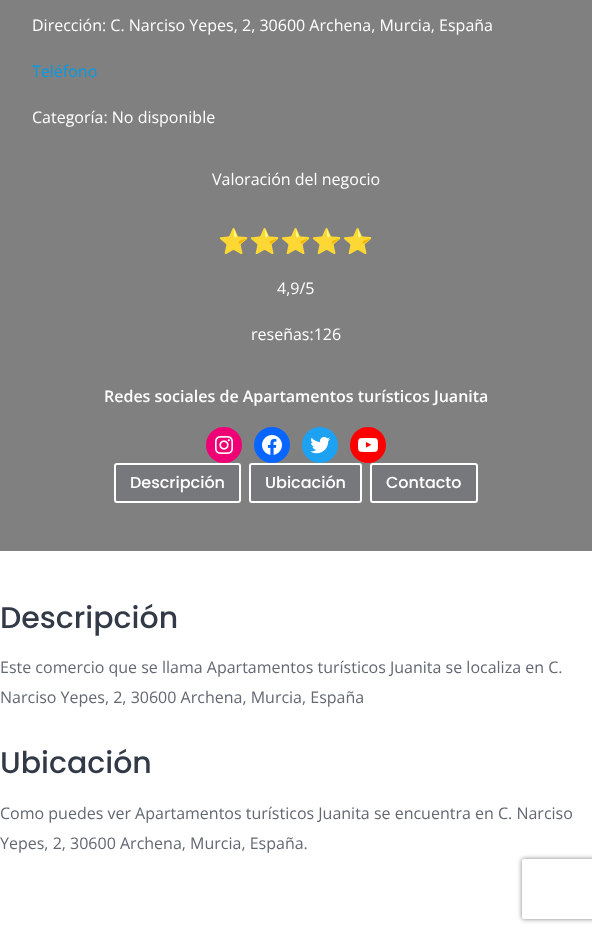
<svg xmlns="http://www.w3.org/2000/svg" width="592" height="933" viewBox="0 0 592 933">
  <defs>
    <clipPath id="clip1"><path d="M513 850H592V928H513ZM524 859H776C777 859 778 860 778 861V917C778 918 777 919 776 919H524C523 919 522 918 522 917V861C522 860 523 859 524 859Z" clip-rule="evenodd"/></clipPath>
  </defs>
  <rect width="100%" height="100%" fill="rgb(255,255,255)"/>
  <rect x="0" y="0" width="592" height="551" fill="rgb(128,128,128)"/>
  <text x="32" y="31" font-family="Open Sans" font-size="16" fill="rgb(255,255,255)">Dirección: C. Narciso Yepes, 2, 30600 Archena, Murcia, España</text>
  <text x="32" y="77" font-family="Open Sans" font-size="16" fill="rgb(3,155,229)">Teléfono</text>
  <g font-family="Open Sans" font-size="16" fill="rgb(255,255,255)">
    <text x="32" y="123">Categoría: No disponible</text>
    <text x="212" y="185">Valoración del negocio</text>
  </g>
  <text x="218" y="250" font-family="Noto Color Emoji" font-size="25" fill="rgb(255,255,255)">⭐⭐⭐⭐⭐</text>
  <g font-family="Open Sans" font-size="16" fill="rgb(255,255,255)">
    <text x="277" y="294">4,9/5</text>
    <text x="251" y="340">reseñas:126</text>
  </g>
  <text x="104" y="402" font-family="Open Sans" font-size="16" font-weight="600" fill="rgb(255,255,255)">Redes sociales de Apartamentos turísticos Juanita</text>
  <circle cx="224" cy="445" r="18" fill="rgb(240,0,117)"/>
  <image x="215" y="436" width="18" height="18" href="pic1.png"/>
  <circle cx="272" cy="445" r="18" fill="rgb(8,102,255)"/>
  <image x="262" y="435" width="20" height="20" href="pic2.png"/>
  <circle cx="320" cy="445" r="18" fill="rgb(29,161,242)"/>
  <image x="310" y="437" width="20" height="17" href="pic3.png"/>
  <circle cx="368" cy="445" r="18" fill="rgb(255,0,0)"/>
  <image x="358" y="438" width="20" height="14" href="pic4.png"/>
  <rect x="115" y="464" width="125" height="38" rx="2" fill="rgb(118,120,124)" stroke="rgb(255,255,255)" stroke-width="2"/>
  <text x="130" y="488" font-family="Poppins" font-size="16" font-weight="500" fill="rgb(255,255,255)">Descripción</text>
  <rect x="250" y="464" width="111" height="38" rx="2" fill="rgb(118,120,124)" stroke="rgb(255,255,255)" stroke-width="2"/>
  <text x="265" y="488" font-family="Poppins" font-size="16" font-weight="500" fill="rgb(255,255,255)">Ubicación</text>
  <rect x="371" y="464" width="106" height="38" rx="2" fill="rgb(118,120,124)" stroke="rgb(255,255,255)" stroke-width="2"/>
  <text x="386" y="488" font-family="Poppins" font-size="16" font-weight="500" fill="rgb(255,255,255)">Contacto</text>
  <text x="0" y="628" font-family="Poppins" font-size="30" font-weight="500" fill="rgb(51,58,71)">Descripción</text>
  <g font-family="Open Sans" font-size="16" fill="rgb(99,104,115)">
    <text>
      <tspan x="0" y="673">Este comercio que se llama Apartamentos turísticos Juanita se localiza en C.</tspan>
      <tspan x="0" y="703">Narciso Yepes, 2, 30600 Archena, Murcia, España</tspan>
    </text>
  </g>
  <text x="0" y="773" font-family="Poppins" font-size="30" font-weight="500" fill="rgb(51,58,71)">Ubicación</text>
  <g font-family="Open Sans" font-size="16" fill="rgb(99,104,115)">
    <text>
      <tspan x="0" y="819">Como puedes ver Apartamentos turísticos Juanita se encuentra en C. Narciso</tspan>
      <tspan x="0" y="849">Yepes, 2, 30600 Archena, Murcia, España.</tspan>
    </text>
  </g>
  <g clip-path="url(#clip1)">
    <rect x="522" y="859" width="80" height="60" rx="2" fill="rgb(128,128,128)" filter="blur(2.5px)"/>
  </g>
</svg>
